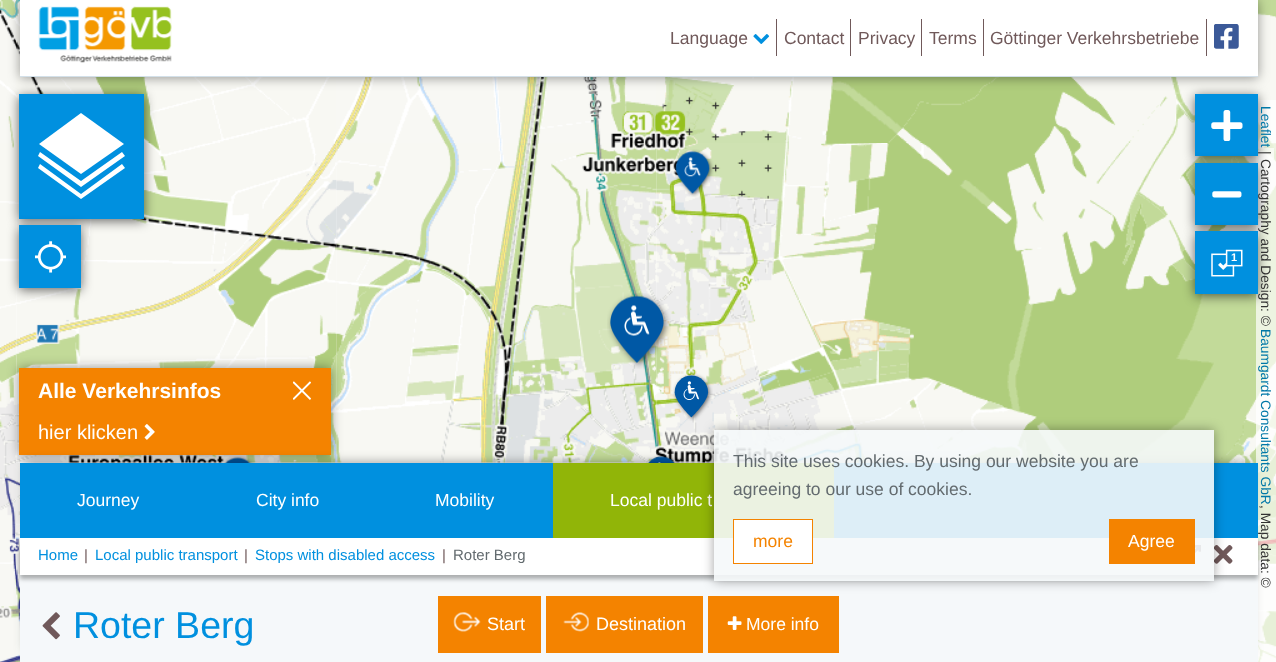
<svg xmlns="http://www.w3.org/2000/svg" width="1276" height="662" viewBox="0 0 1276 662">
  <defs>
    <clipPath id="clip1"><rect x="79" y="548" width="159" height="15"/></clipPath>
    <clipPath id="clip2"><path d="M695 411H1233V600H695ZM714 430H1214V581H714Z" clip-rule="evenodd"/></clipPath>
  </defs>
  <rect width="100%" height="100%" fill="rgb(255,255,255)"/>
  <image x="0" y="0" width="16" height="143" href="pic8.png"/>
  <image x="336" y="142" width="321" height="321" href="pic15.png"/>
  <image x="336" y="77" width="320" height="66" href="pic10.png"/>
  <image x="16" y="142" width="321" height="321" href="pic14.png"/>
  <image x="16" y="0" width="320" height="143" href="pic9.png"/>
  <image x="0" y="143" width="16" height="320" href="pic13.png"/>
  <rect x="19" y="96" width="125" height="125" fill="rgba(0,0,0,0.6)" filter="blur(6px)"/>
  <rect x="19" y="94" width="125" height="125" fill="rgb(0,144,223)"/>
  <image x="656" y="142" width="321" height="321" href="pic16.png"/>
  <image x="976" y="0" width="300" height="143" href="pic12.png"/>
  <image x="976" y="143" width="300" height="320" href="pic17.png"/>
  <image x="1258" y="463" width="18" height="199" href="pic20.png"/>
  <rect x="1256" y="100" width="20" height="562" fill="rgba(255,255,255,0.7)"/>
  <rect x="1259" y="148" width="15" height="11" fill="rgba(255,255,255,0.7)"/>
  <rect x="1195" y="96" width="63" height="63" fill="rgba(0,0,0,0.6)" filter="blur(6px)"/>
  <rect x="1195" y="94" width="63" height="62" fill="rgb(0,144,223)"/>
  <image x="656" y="77" width="320" height="66" href="pic11.png"/>
  <rect x="20" y="0" width="1238" height="78" fill="rgba(0,0,0,0.4)" filter="blur(6px)"/>
  <rect x="20" y="0" width="1238" height="76" fill="rgb(255,255,255)"/>
  <rect x="20" y="76" width="1238" height="1" fill="rgb(211,224,233)"/>
  <image x="38" y="6" width="134" height="57" href="pic1.png"/>
  <text x="670" y="44" font-family="Liberation Sans" font-size="17.5" fill="rgb(112,89,90)">Language</text>
  <image x="753" y="34" width="17" height="10" href="pic2.png"/>
  <rect x="776" y="19" width="1" height="37" fill="rgb(112,89,90)"/>
  <text x="784" y="44" font-family="Liberation Sans" font-size="17.5" fill="rgb(112,89,90)">Contact</text>
  <rect x="850" y="19" width="1" height="37" fill="rgb(112,89,90)"/>
  <text x="858" y="44" font-family="Liberation Sans" font-size="17.5" fill="rgb(112,89,90)">Privacy</text>
  <rect x="921" y="19" width="1" height="37" fill="rgb(112,89,90)"/>
  <text x="929" y="44" font-family="Liberation Sans" font-size="17.5" fill="rgb(112,89,90)">Terms</text>
  <rect x="983" y="19" width="1" height="37" fill="rgb(112,89,90)"/>
  <text x="990" y="44" font-family="Liberation Sans" font-size="17.5" fill="rgb(112,89,90)">Göttinger Verkehrsbetriebe</text>
  <rect x="1206" y="19" width="1" height="37" fill="rgb(112,89,90)"/>
  <image x="1214" y="24" width="25" height="25" href="pic3.png"/>
  <path d="M81 174L39 144L81 113L124 144Z" fill="rgb(255,255,255)"/>
  <path d="M81 199L38 168L40 164L81 194L122 164L125 168Z" fill="rgb(255,255,255)"/>
  <path d="M81 187L38 156L40 152L81 181L122 152L125 156Z" fill="rgb(255,255,255)"/>
  <rect x="19" y="228" width="62" height="62" fill="rgba(0,0,0,0.6)" filter="blur(6px)"/>
  <rect x="19" y="225" width="62" height="63" fill="rgb(0,144,223)"/>
  <image x="35" y="241" width="31" height="32" href="pic4.png"/>
  <image x="1211" y="110" width="32" height="31" href="pic5.png"/>
  <rect x="1195" y="165" width="63" height="63" fill="rgba(0,0,0,0.6)" filter="blur(6px)"/>
  <rect x="1195" y="163" width="63" height="62" fill="rgb(0,144,223)"/>
  <image x="1212" y="191" width="30" height="7" href="pic6.png"/>
  <rect x="1195" y="234" width="63" height="62" fill="rgba(0,0,0,0.6)" filter="blur(6px)"/>
  <rect x="1195" y="231" width="63" height="63" fill="rgb(0,144,223)"/>
  <image x="1211" y="249" width="32" height="28" href="pic7.png"/>
  <text x="1231" y="261" font-family="Liberation Sans" font-size="11" font-weight="bold" fill="rgb(255,255,255)">1</text>
  <image x="0" y="463" width="16" height="199" href="pic18.png"/>
  <image x="16" y="463" width="4" height="199" href="pic19.png"/>
  <image x="674" y="149" width="40" height="48" href="pic21.png"/>
  <image x="607" y="293" width="64" height="76" href="pic22.png"/>
  <image x="672" y="373" width="41" height="48" href="pic23.png"/>
  <image x="224" y="456" width="30" height="7" href="pic24.png"/>
  <image x="646" y="454" width="33" height="9" href="pic25.png"/>
  <text x="1261" y="106" transform="rotate(90 1261 106)" font-family="Liberation Sans" font-size="13.75" fill="rgb(0,120,168)">Leaflet</text>
  <g font-family="Liberation Sans" font-size="13.75" fill="rgb(51,51,51)">
    <text x="1261" y="151" transform="rotate(90 1261 151)">|</text>
    <text x="1261" y="159" transform="rotate(90 1261 159)">Cartography and Design: ©</text>
  </g>
  <text x="1261" y="329" transform="rotate(90 1261 329)" font-family="Liberation Sans" font-size="13.75" fill="rgb(0,120,168)">Baumgardt Consultants GbR</text>
  <text x="1261" y="505" transform="rotate(90 1261 505)" font-family="Liberation Sans" font-size="13.75" fill="rgb(51,51,51)">, Map data: ©</text>
  <rect x="19" y="368" width="312" height="87" fill="rgba(0,0,0,0.4)" filter="blur(6px)"/>
  <rect x="19" y="368" width="312" height="87" fill="rgb(244,131,0)"/>
  <text x="38" y="398" font-family="Liberation Sans" font-size="21" font-weight="bold" fill="rgb(255,255,255)">Alle Verkehrsinfos</text>
  <image x="293" y="381" width="18" height="19" href="pic26.png"/>
  <text x="38" y="439" font-family="Liberation Sans" font-size="20" fill="rgb(255,255,255)">hier klicken</text>
  <image x="144" y="424" width="11" height="16" href="pic27.png"/>
  <rect x="26" y="538" width="1225" height="112" fill="rgba(0,0,0,0.4)" filter="blur(6px)"/>
  <rect x="20" y="575" width="1238" height="87" fill="rgb(245,248,250)"/>
  <rect x="20" y="541" width="1238" height="38" fill="rgba(0,0,0,0.3)" filter="blur(2px)"/>
  <rect x="20" y="538" width="1238" height="37" fill="rgb(255,255,255)"/>
  <rect x="26" y="463" width="1225" height="62" fill="rgba(0,0,0,0.4)" filter="blur(6px)"/>
  <rect x="20" y="463" width="533" height="75" fill="rgb(0,144,223)"/>
  <g font-family="Liberation Sans" font-size="17.5" fill="rgb(255,255,255)">
    <text x="77" y="506">Journey</text>
    <text x="256" y="506">City info</text>
    <text x="435" y="506">Mobility</text>
  </g>
  <rect x="553" y="463" width="281" height="75" fill="rgb(145,181,8)"/>
  <text x="610" y="506" font-family="Liberation Sans" font-size="17.5" fill="rgb(255,255,255)">Local public t</text>
  <rect x="834" y="463" width="424" height="75" fill="rgb(0,144,223)"/>
  <text x="38" y="560" font-family="Liberation Sans" font-size="15" fill="rgb(0,144,223)">Home</text>
  <text x="84" y="560" font-family="Liberation Sans" font-size="15" fill="rgb(112,89,90)">|</text>
  <g clip-path="url(#clip1)">
    <text x="95" y="560" font-family="Liberation Sans" font-size="15" fill="rgb(0,144,223)">Local public transport</text>
  </g>
  <text x="244" y="560" font-family="Liberation Sans" font-size="15" fill="rgb(112,89,90)">|</text>
  <text x="255" y="560" font-family="Liberation Sans" font-size="15" fill="rgb(0,144,223)">Stops with disabled access</text>
  <text x="442" y="560" font-family="Liberation Sans" font-size="15" fill="rgb(112,89,90)">|</text>
  <text x="453" y="560" font-family="Liberation Sans" font-size="15" fill="rgb(99,107,111)">Roter Berg</text>
  <image x="42" y="612" width="18" height="28" href="pic28.png"/>
  <text x="73" y="638" font-family="Liberation Sans" font-size="37.5" fill="rgb(0,144,223)">Roter Berg</text>
  <rect x="438" y="596" width="103" height="57" fill="rgb(244,131,0)"/>
  <image x="453" y="612" width="28" height="20" href="pic29.png"/>
  <text x="487" y="630" font-family="Liberation Sans" font-size="18" fill="rgb(255,255,255)">Start</text>
  <rect x="546" y="596" width="157" height="57" fill="rgb(244,131,0)"/>
  <image x="563" y="612" width="26" height="20" href="pic30.png"/>
  <text x="596" y="630" font-family="Liberation Sans" font-size="18" fill="rgb(255,255,255)">Destination</text>
  <rect x="708" y="596" width="131" height="57" fill="rgb(244,131,0)"/>
  <image x="727" y="616" width="15" height="14" href="pic31.png"/>
  <text x="746" y="630" font-family="Liberation Sans" font-size="17.5" fill="rgb(255,255,255)">More info</text>
  <image x="1195" y="545" width="6" height="8" href="pic32.png"/>
  <image x="1214" y="545" width="19" height="19" href="pic33.png"/>
  <g clip-path="url(#clip2)">
    <rect x="714" y="430" width="500" height="151" fill="rgba(0,0,0,0.36)" filter="blur(6px)"/>
  </g>
  <rect x="714" y="430" width="500" height="151" fill="rgba(245,248,250,0.9)"/>
  <g font-family="Liberation Sans" font-size="17.5" fill="rgb(99,107,111)">
    <text>
      <tspan x="733" y="467">This site uses cookies. By using our website you are</tspan>
      <tspan x="733" y="495">agreeing to our use of cookies.</tspan>
    </text>
  </g>
  <rect x="733.5" y="519.5" width="79" height="44" fill="rgb(255,255,255)" stroke="rgb(244,131,0)"/>
  <text x="753" y="547" font-family="Liberation Sans" font-size="17.5" fill="rgb(244,131,0)">more</text>
  <rect x="1109" y="519" width="86" height="45" fill="rgb(244,131,0)"/>
  <text x="1128" y="547" font-family="Liberation Sans" font-size="17.5" fill="rgb(255,255,255)">Agree</text>
</svg>
